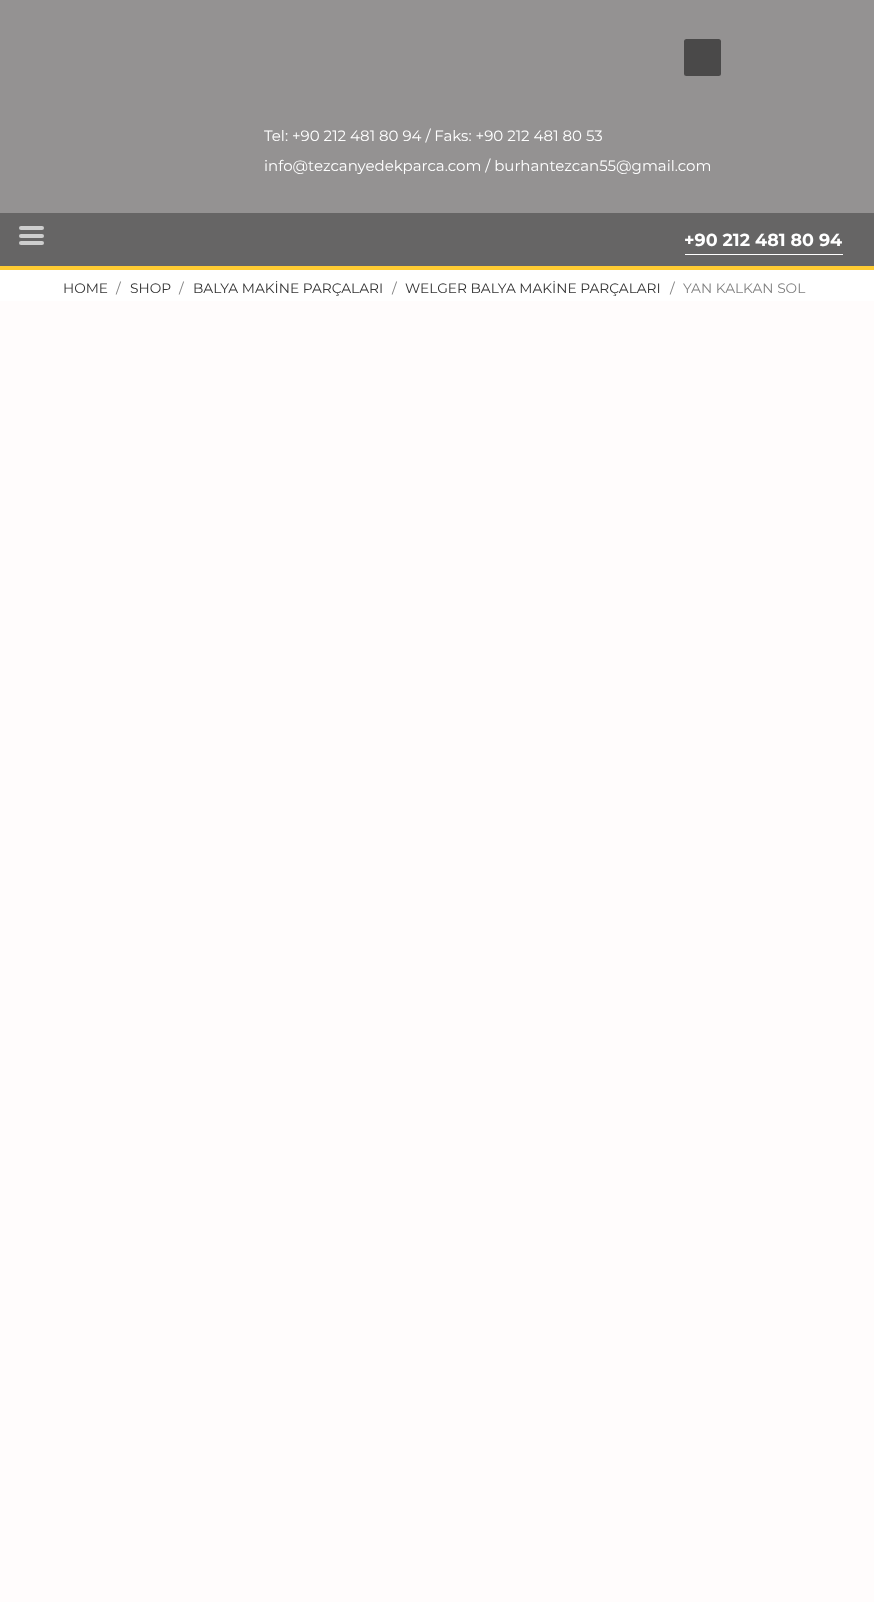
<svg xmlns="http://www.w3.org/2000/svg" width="874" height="1602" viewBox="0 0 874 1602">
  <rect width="100%" height="100%" fill="rgb(255,252,252)"/>
  <rect x="0" y="0" width="874" height="213" fill="rgb(148,146,146)"/>
  <rect x="684" y="39" width="37" height="37" rx="2.5" fill="rgb(74,73,73)"/>
  <g font-family="Montserrat" font-size="15" fill="rgb(255,255,255)">
    <text x="264" y="141">Tel: +90 212 481 80 94 / Faks: +90 212 481 80 53</text>
    <text x="264" y="171">info@tezcanyedekparca.com / burhantezcan55@gmail.com</text>
  </g>
  <rect x="0" y="213" width="874" height="53" fill="rgb(102,101,101)"/>
  <rect x="0" y="266" width="874" height="4" fill="rgb(255,204,51)"/>
  <rect x="19" y="226" width="25" height="4" rx="2" fill="rgb(206,206,206)"/>
  <rect x="19" y="234" width="25" height="4" rx="2" fill="rgb(206,206,206)"/>
  <rect x="19" y="241" width="25" height="4" rx="2" fill="rgb(206,206,206)"/>
  <rect x="685" y="254" width="158" height="1" fill="rgb(255,255,255)"/>
  <text x="684" y="246" font-family="Montserrat" font-size="17.5" font-weight="bold" fill="rgb(255,255,255)">+90 212 481 80 94</text>
  <rect x="0" y="270" width="874" height="31" fill="rgb(255,255,255)"/>
  <text x="63" y="293" font-family="Montserrat" font-size="13.75" fill="rgb(51,51,51)">HOME</text>
  <text x="116" y="293" font-family="Montserrat" font-size="13.75" fill="rgb(128,128,128)">/</text>
  <text x="130" y="293" font-family="Montserrat" font-size="13.75" fill="rgb(51,51,51)">SHOP</text>
  <text x="179" y="293" font-family="Montserrat" font-size="13.75" fill="rgb(128,128,128)">/</text>
  <text x="193" y="293" font-family="Montserrat" font-size="13.75" fill="rgb(51,51,51)">BALYA MAKİNE PARÇALARI</text>
  <text x="392" y="293" font-family="Montserrat" font-size="13.75" fill="rgb(128,128,128)">/</text>
  <text x="405" y="293" font-family="Montserrat" font-size="13.75" fill="rgb(51,51,51)">WELGER BALYA MAKİNE PARÇALARI</text>
  <g font-family="Montserrat" font-size="13.75" fill="rgb(128,128,128)">
    <text x="670" y="293">/</text>
    <text x="683" y="293">YAN KALKAN SOL</text>
  </g>
</svg>
